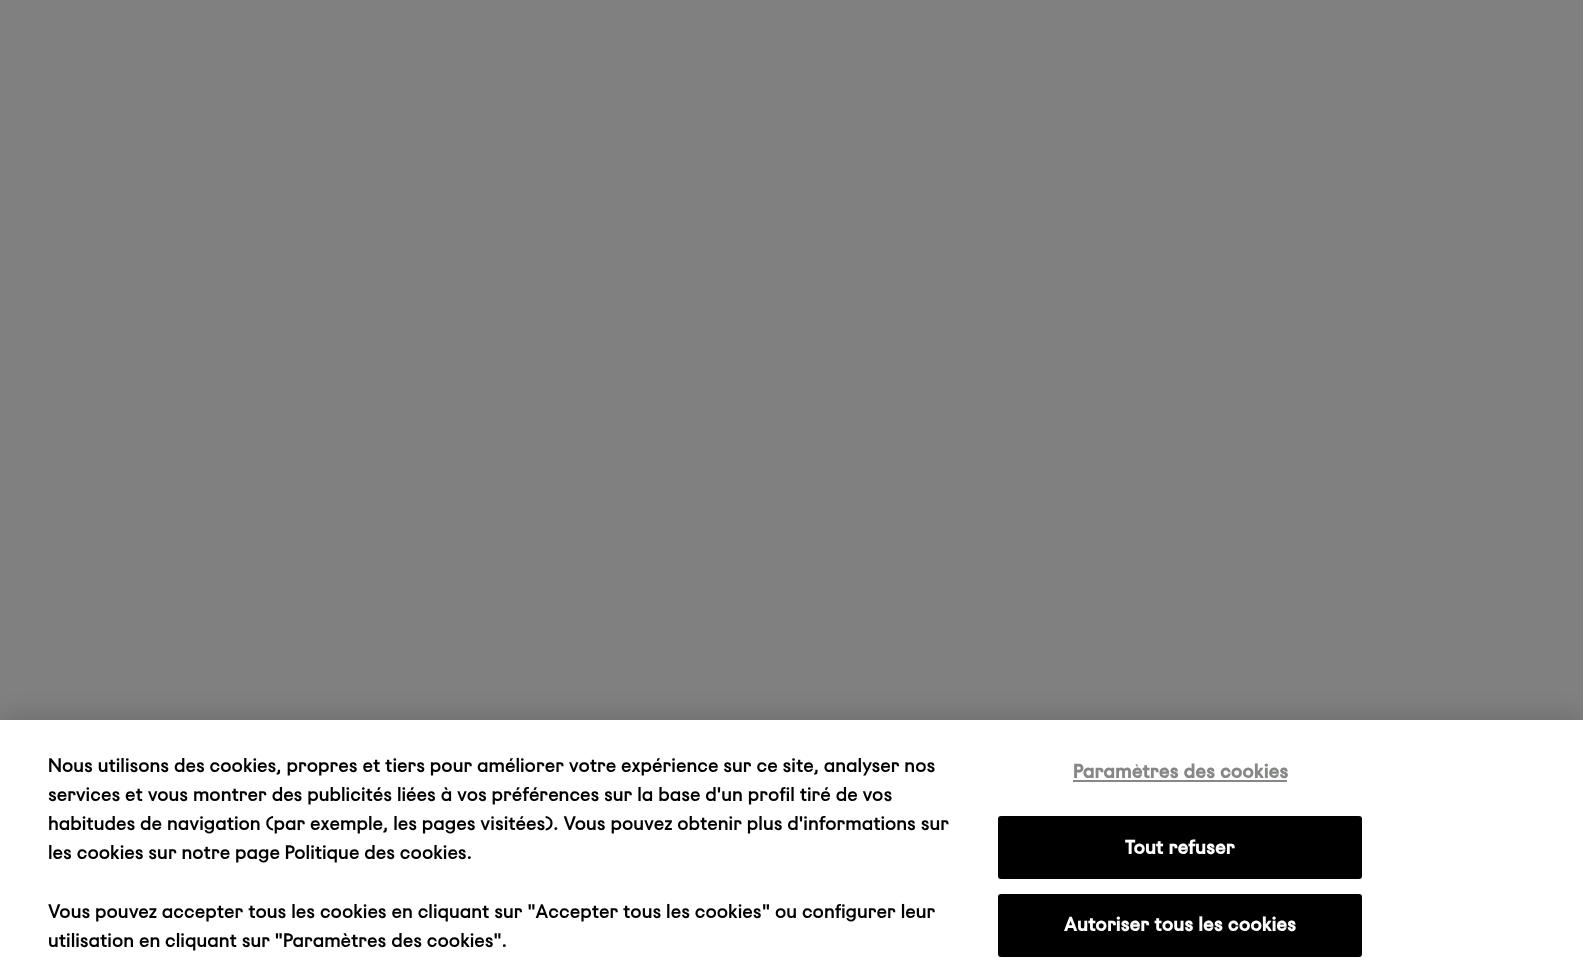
<svg xmlns="http://www.w3.org/2000/svg" width="1583" height="970" viewBox="0 0 1583 970">
  <rect width="100%" height="100%" fill="rgb(128,128,128)"/>
  <rect x="0" y="720" width="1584" height="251" fill="rgba(0,0,0,0.2)" filter="blur(13.5px)"/>
  <rect x="0" y="720" width="1583" height="250" fill="rgb(255,255,255)"/>
  <g font-family="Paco" font-size="19.5" fill="rgb(0,0,0)">
    <text>
      <tspan x="48" y="772">Nous utilisons des cookies, propres et tiers pour améliorer votre expérience sur ce site, analyser nos</tspan>
      <tspan x="48" y="801">services et vous montrer des publicités liées à vos préférences</tspan>
    </text>
    <text x="604" y="801">sur la base d'un profil tiré de vos</text>
    <text>
      <tspan x="48" y="830">habitudes de navigation (par exemple, les pages visitées). Vous pouvez obtenir plus d'informations sur</tspan>
      <tspan x="48" y="859">les cookies sur notre page Politique des cookies.</tspan>
    </text>
    <text x="48" y="918">Vous pouvez accepter tous les cookies en cliquant sur "Accepter tous les cookies</text>
    <text x="762" y="918">" ou configurer leur</text>
    <text x="48" y="947">utilisation en cliquant sur "Paramètres des cookies".</text>
  </g>
  <text x="1073" y="778" font-family="Paco" font-size="19.5" font-weight="bold" letter-spacing="0.2" fill="rgb(134,136,134)">Paramètres des cookies</text>
  <rect x="1073" y="780" width="214" height="2" fill="rgb(134,136,134)"/>
  <rect x="999" y="817" width="362" height="61" rx="2" fill="rgb(0,0,0)" stroke="rgb(0,0,0)" stroke-width="2"/>
  <text x="1125" y="854" font-family="Paco" font-size="19.5" font-weight="bold" letter-spacing="0.2" fill="rgb(255,255,255)">Tout refuser</text>
  <rect x="999" y="895" width="362" height="61" rx="2" fill="rgb(0,0,0)" stroke="rgb(0,0,0)" stroke-width="2"/>
  <text x="1064" y="931" font-family="Paco" font-size="19.5" font-weight="bold" letter-spacing="0.2" fill="rgb(255,255,255)">Autoriser tous les cookies</text>
</svg>
